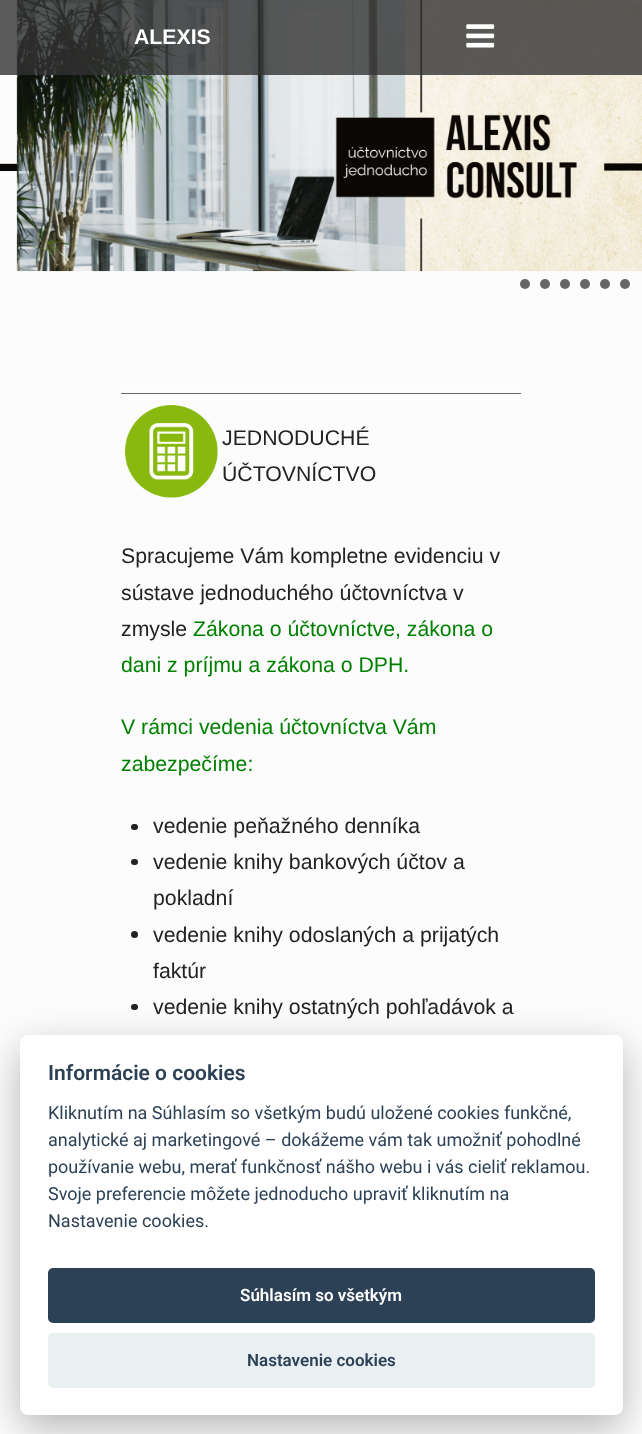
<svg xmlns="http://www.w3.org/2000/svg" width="642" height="1434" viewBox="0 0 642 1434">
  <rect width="100%" height="100%" fill="rgb(252,252,252)"/>
  <image x="0" y="0" width="642" height="272" href="pic1.png"/>
  <circle cx="525" cy="284" r="5" fill="rgb(102,102,102)"/>
  <circle cx="545" cy="284" r="5" fill="rgb(102,102,102)"/>
  <circle cx="565" cy="284" r="5" fill="rgb(102,102,102)"/>
  <circle cx="585" cy="284" r="5" fill="rgb(102,102,102)"/>
  <circle cx="605" cy="284" r="5" fill="rgb(102,102,102)"/>
  <circle cx="625" cy="284" r="5" fill="rgb(102,102,102)"/>
  <rect x="0" y="0" width="642" height="75" fill="rgba(50,50,50,0.8)"/>
  <text x="134" y="44" font-family="Liberation Sans" font-size="21.25" font-weight="bold" fill="rgb(255,255,255)">ALEXIS</text>
  <image x="466" y="24" width="29" height="24" href="pic2.png"/>
  <rect x="121" y="391" width="400" height="1" fill="rgb(255,255,255)"/>
  <rect x="121" y="393" width="400" height="1" fill="rgb(102,102,102)"/>
  <image x="125" y="405" width="93" height="93" href="pic3.png"/>
  <g font-family="Liberation Sans" font-size="21.25" fill="rgb(34,34,34)">
    <text>
      <tspan x="222" y="445">JEDNODUCHÉ</tspan>
      <tspan x="222" y="481">ÚČTOVNÍCTVO</tspan>
    </text>
    <text>
      <tspan x="121" y="563">Spracujeme Vám kompletne evidenciu v</tspan>
      <tspan x="121" y="600">sústave jednoduchého účtovníctva v</tspan>
      <tspan x="121" y="636">zmysle</tspan>
    </text>
  </g>
  <g font-family="Liberation Sans" font-size="21.25" fill="rgb(0,128,0)">
    <text x="193" y="636">Zákona o účtovníctve, zákona o</text>
    <text x="121" y="672">dani z príjmu a zákona o DPH.</text>
    <text>
      <tspan x="121" y="734">V rámci vedenia účtovníctva Vám</tspan>
      <tspan x="121" y="771">zabezpečíme:</tspan>
    </text>
  </g>
  <rect x="131" y="824" width="7" height="6" rx="3" fill="rgb(34,34,34)"/>
  <text x="153" y="833" font-family="Liberation Sans" font-size="21.25" fill="rgb(34,34,34)">vedenie peňažného denníka</text>
  <rect x="131" y="859" width="7" height="6" rx="3" fill="rgb(34,34,34)"/>
  <g font-family="Liberation Sans" font-size="21.25" fill="rgb(34,34,34)">
    <text>
      <tspan x="153" y="869">vedenie knihy bankových účtov a</tspan>
      <tspan x="153" y="905">pokladní</tspan>
    </text>
  </g>
  <circle cx="134.5" cy="934.5" r="3.5" fill="rgb(34,34,34)"/>
  <g font-family="Liberation Sans" font-size="21.25" fill="rgb(34,34,34)">
    <text>
      <tspan x="153" y="942">vedenie knihy odoslaných a prijatých</tspan>
      <tspan x="153" y="978">faktúr</tspan>
    </text>
  </g>
  <rect x="131" y="1004" width="7" height="6" rx="3" fill="rgb(34,34,34)"/>
  <text x="153" y="1014" font-family="Liberation Sans" font-size="21.25" fill="rgb(34,34,34)">vedenie knihy ostatných pohľadávok a</text>
  <rect x="20" y="1048" width="603" height="380" rx="8" fill="rgba(2,2,3,0.28)" filter="blur(19px)"/>
  <rect x="20" y="1035" width="603" height="380" rx="8" fill="rgb(255,255,255)"/>
  <text x="48" y="1080" font-family="Roboto" font-size="21" font-weight="600" fill="rgb(45,65,86)">Informácie o cookies</text>
  <g font-family="Roboto" font-size="18" fill="rgb(45,65,86)">
    <text>
      <tspan x="48" y="1119">Kliknutím na Súhlasím so všetkým budú uložené cookies funkčné,</tspan>
      <tspan x="48" y="1146">analytické aj marketingové – dokážeme vám tak umožniť pohodlné</tspan>
      <tspan x="48" y="1173">používanie webu, merať funkčnosť nášho webu i vás cieliť reklamou.</tspan>
      <tspan x="48" y="1200">Svoje preferencie môžete jednoducho upraviť kliknutím na</tspan>
      <tspan x="48" y="1227">Nastavenie cookies.</tspan>
    </text>
  </g>
  <rect x="48" y="1268" width="547" height="55" rx="5" fill="rgb(45,65,86)"/>
  <text x="240" y="1301" font-family="Roboto" font-size="17" font-weight="600" fill="rgb(255,255,255)">Súhlasím so všetkým</text>
  <rect x="48" y="1333" width="547" height="55" rx="5" fill="rgb(234,239,242)"/>
  <text x="247" y="1366" font-family="Roboto" font-size="17" font-weight="600" fill="rgb(45,65,86)">Nastavenie cookies</text>
</svg>
